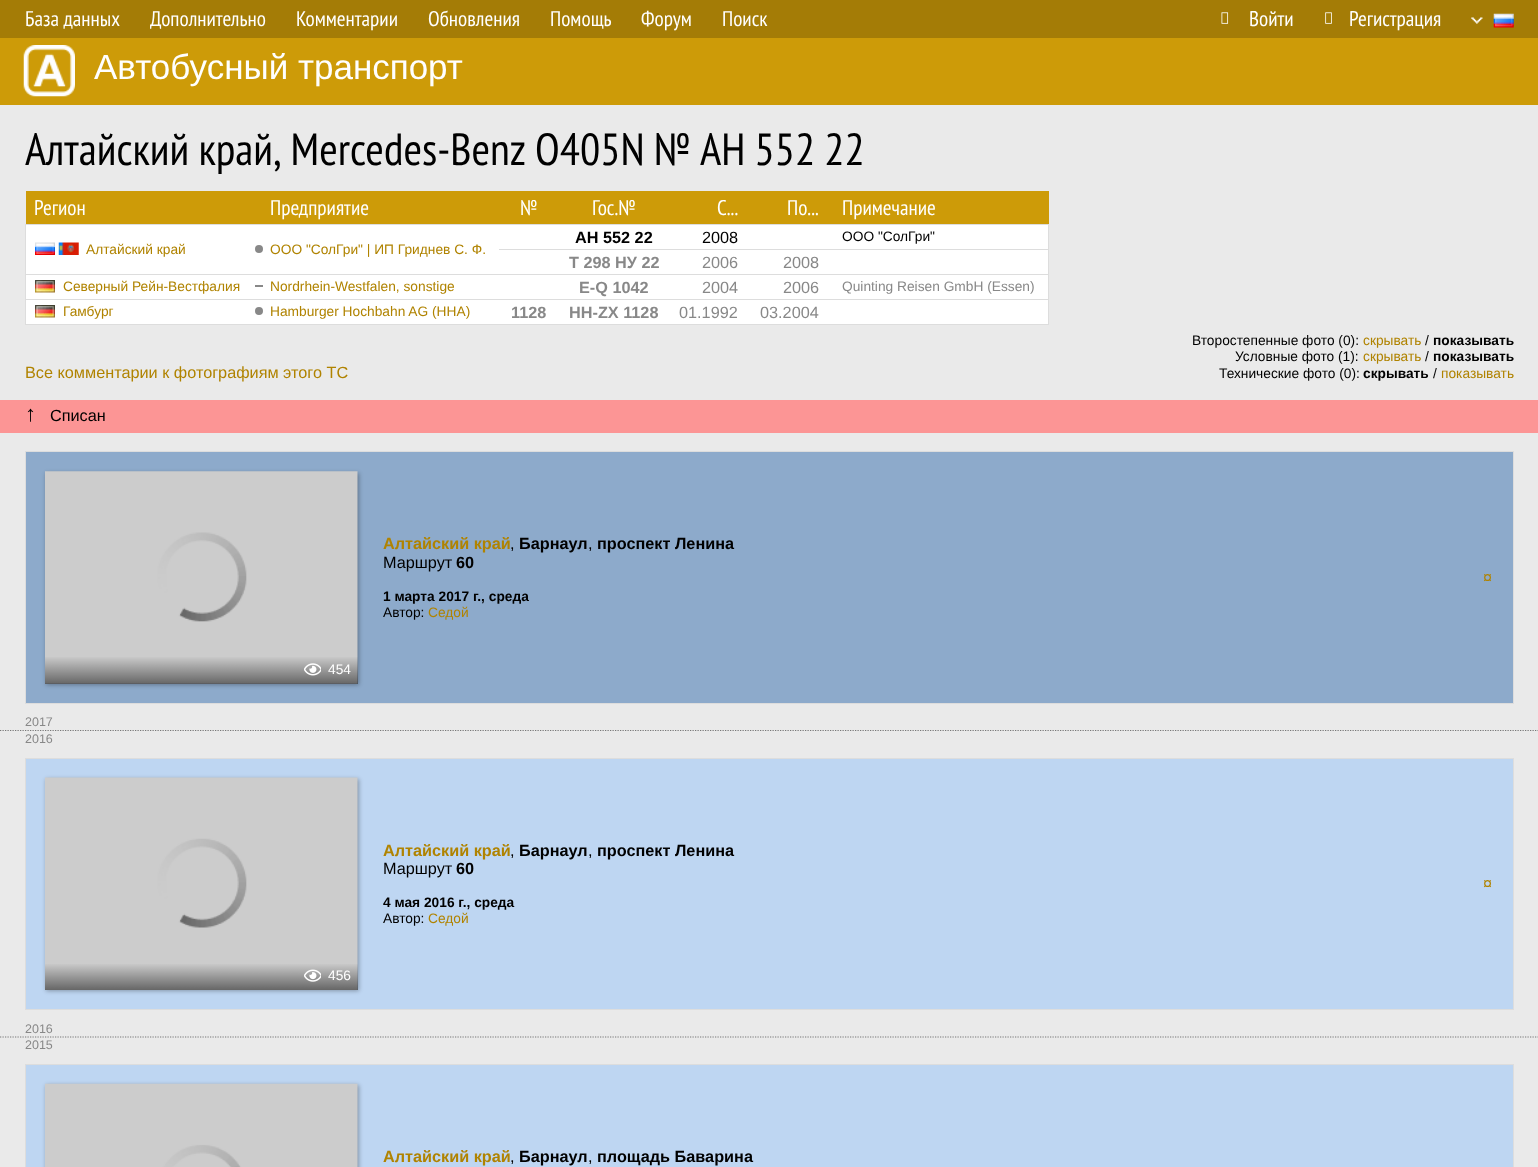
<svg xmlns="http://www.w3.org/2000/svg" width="1538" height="1167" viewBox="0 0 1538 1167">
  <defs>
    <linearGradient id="g1" gradientUnits="userSpaceOnUse" x1="201" y1="684" x2="201" y2="656"><stop offset="0" stop-color="rgb(0,0,0)" stop-opacity="0.5"/><stop offset="1" stop-color="rgb(0,0,0)" stop-opacity="0"/></linearGradient>
    <linearGradient id="g2" gradientUnits="userSpaceOnUse" x1="201" y1="990" x2="201" y2="963"><stop offset="0" stop-color="rgb(0,0,0)" stop-opacity="0.5"/><stop offset="1" stop-color="rgb(0,0,0)" stop-opacity="0"/></linearGradient>
  </defs>
  <rect width="100%" height="100%" fill="rgb(164,124,6)"/>
  <g font-family="PT Sans Narrow" font-size="21.25" fill="rgb(255,255,255)">
    <text x="25" y="26">База данных</text>
    <text x="150" y="26">Дополнительно</text>
    <text x="296" y="26">Комментарии</text>
    <text x="428" y="26">Обновления</text>
    <text x="550" y="26">Помощь</text>
    <text x="641" y="26">Форум</text>
    <text x="722" y="26">Поиск</text>
  </g>
  <image x="1221" y="12" width="8" height="12" href="pic1.png"/>
  <text x="1249" y="26" font-family="PT Sans Narrow" font-size="21.25" fill="rgb(255,255,255)">Войти</text>
  <image x="1325" y="12" width="7" height="12" href="pic2.png"/>
  <text x="1349" y="26" font-family="PT Sans Narrow" font-size="21.25" fill="rgb(255,255,255)">Регистрация</text>
  <image x="1471" y="17" width="12" height="7" href="pic3.png"/>
  <image x="1493" y="13" width="21" height="15" href="pic4.png"/>
  <rect x="0" y="38" width="1538" height="67" fill="rgb(205,155,8)"/>
  <image x="23" y="45" width="52" height="52" href="pic5.png"/>
  <text x="94" y="79" font-family="Liberation Sans" font-size="35" fill="rgb(255,255,255)">Автобусный транспорт</text>
  <rect x="0" y="105" width="1538" height="1062" fill="rgb(234,234,234)"/>
  <text x="25" y="165" word-spacing="-0.5" font-family="PT Sans Narrow" font-size="45" fill="rgb(0,0,0)">Алтайский край, Mercedes-Benz O405N № АН 552 22</text>
  <rect x="26" y="191" width="1023" height="33" fill="rgb(205,155,8)"/>
  <g font-family="PT Sans Narrow" font-size="21.25" fill="rgb(255,255,255)">
    <text x="34" y="215">Регион</text>
    <text x="270" y="215">Предприятие</text>
    <text x="520" y="215">№</text>
    <text x="592" y="215">Гос.№</text>
    <text x="717" y="215">С...</text>
    <text x="787" y="215">По...</text>
    <text x="842" y="215">Примечание</text>
  </g>
  <rect x="26" y="225" width="1022" height="99" fill="rgb(255,255,255)"/>
  <rect x="25" y="224" width="1024" height="1" fill="rgb(221,221,221)"/>
  <rect x="1048" y="224" width="1" height="101" fill="rgb(221,221,221)"/>
  <rect x="25" y="324" width="1024" height="1" fill="rgb(221,221,221)"/>
  <rect x="25" y="224" width="1" height="101" fill="rgb(221,221,221)"/>
  <text x="575" y="243" font-family="Liberation Sans" font-size="16.25" font-weight="bold" fill="rgb(0,0,0)">АН 552 22</text>
  <text x="702" y="243" font-family="Liberation Sans" font-size="16.25" fill="rgb(0,0,0)">2008</text>
  <rect x="499" y="249" width="550" height="1" fill="rgb(221,221,221)"/>
  <text x="842" y="241" font-family="Liberation Sans" font-size="13.75" fill="rgb(0,0,0)">ООО "СолГри"</text>
  <image x="35" y="242" width="20" height="13" href="pic6.png"/>
  <image x="58" y="242" width="21" height="13" href="pic7.png"/>
  <text x="86" y="254" font-family="Liberation Sans" font-size="13.75" fill="rgb(176,131,0)">Алтайский край</text>
  <circle cx="259" cy="249" r="4" fill="rgb(136,136,136)"/>
  <text x="270" y="254" font-family="Liberation Sans" font-size="13.75" fill="rgb(176,131,0)">ООО "СолГри" | ИП Гриднев С. Ф.</text>
  <text x="569" y="268" font-family="Liberation Sans" font-size="16.25" font-weight="bold" fill="rgb(136,136,136)">Т 298 НУ 22</text>
  <g font-family="Liberation Sans" font-size="16.25" fill="rgb(136,136,136)">
    <text x="702" y="268">2006</text>
    <text x="783" y="268">2008</text>
  </g>
  <rect x="25" y="274" width="1024" height="1" fill="rgb(221,221,221)"/>
  <image x="35" y="280" width="20" height="13" href="pic8.png"/>
  <text x="63" y="291" font-family="Liberation Sans" font-size="13.75" fill="rgb(176,131,0)">Северный Рейн-Вестфалия</text>
  <rect x="255" y="285" width="8" height="2" fill="rgb(136,136,136)"/>
  <text x="270" y="291" font-family="Liberation Sans" font-size="13.75" fill="rgb(176,131,0)">Nordrhein-Westfalen, sonstige</text>
  <text x="579" y="293" font-family="Liberation Sans" font-size="16.25" font-weight="bold" fill="rgb(136,136,136)">E-Q 1042</text>
  <g font-family="Liberation Sans" font-size="16.25" fill="rgb(136,136,136)">
    <text x="702" y="293">2004</text>
    <text x="783" y="293">2006</text>
  </g>
  <rect x="25" y="299" width="1024" height="1" fill="rgb(221,221,221)"/>
  <text x="842" y="291" font-family="Liberation Sans" font-size="13.75" fill="rgb(136,136,136)">Quinting Reisen GmbH (Essen)</text>
  <image x="35" y="305" width="20" height="13" href="pic8.png"/>
  <text x="63" y="316" font-family="Liberation Sans" font-size="13.75" fill="rgb(176,131,0)">Гамбург</text>
  <circle cx="259" cy="311" r="4" fill="rgb(136,136,136)"/>
  <text x="270" y="316" font-family="Liberation Sans" font-size="13.75" fill="rgb(176,131,0)">Hamburger Hochbahn AG (HHA)</text>
  <g font-family="Liberation Sans" font-size="16.25" font-weight="bold" fill="rgb(136,136,136)">
    <text x="511" y="318">1128</text>
    <text x="569" y="318">HH-ZX 1128</text>
  </g>
  <g font-family="Liberation Sans" font-size="16.25" fill="rgb(136,136,136)">
    <text x="679" y="318">01.1992</text>
    <text x="760" y="318">03.2004</text>
  </g>
  <text x="25" y="378" font-family="Liberation Sans" font-size="16.25" fill="rgb(176,131,0)">Все комментарии к фотографиям этого ТС</text>
  <text x="1192" y="345" font-family="Liberation Sans" font-size="13.75" fill="rgb(0,0,0)">Второстепенные фото (0):</text>
  <text x="1363" y="345" font-family="Liberation Sans" font-size="13.75" fill="rgb(176,131,0)">скрывать</text>
  <text x="1425" y="345" font-family="Liberation Sans" font-size="13.75" fill="rgb(0,0,0)">/</text>
  <text x="1433" y="345" font-family="Liberation Sans" font-size="13.75" font-weight="bold" fill="rgb(0,0,0)">показывать</text>
  <text x="1235" y="361" font-family="Liberation Sans" font-size="13.75" fill="rgb(0,0,0)">Условные фото (1):</text>
  <text x="1363" y="361" font-family="Liberation Sans" font-size="13.75" fill="rgb(176,131,0)">скрывать</text>
  <text x="1425" y="361" font-family="Liberation Sans" font-size="13.75" fill="rgb(0,0,0)">/</text>
  <text x="1433" y="361" font-family="Liberation Sans" font-size="13.75" font-weight="bold" fill="rgb(0,0,0)">показывать</text>
  <text x="1219" y="378" font-family="Liberation Sans" font-size="13.75" fill="rgb(0,0,0)">Технические фото (0):</text>
  <text x="1363" y="378" font-family="Liberation Sans" font-size="13.75" font-weight="bold" fill="rgb(0,0,0)">скрывать</text>
  <text x="1433" y="378" font-family="Liberation Sans" font-size="13.75" fill="rgb(0,0,0)">/</text>
  <text x="1441" y="378" font-family="Liberation Sans" font-size="13.75" fill="rgb(176,131,0)">показывать</text>
  <rect x="0" y="400" width="1538" height="33" fill="rgb(252,149,149)"/>
  <text x="25" y="421" font-family="Liberation Sans" font-size="22" fill="rgb(0,0,0)">↑</text>
  <text x="50" y="421" font-family="Liberation Sans" font-size="16.25" fill="rgb(0,0,0)">Списан</text>
  <rect x="25.5" y="451.5" width="1488" height="252" fill="rgb(141,170,203)" stroke="rgb(221,221,221)"/>
  <text x="383" y="549" font-family="Liberation Sans" font-size="16.25" font-weight="bold" fill="rgb(176,131,0)">Алтайский край</text>
  <text x="510" y="549" font-family="Liberation Sans" font-size="16.25" fill="rgb(0,0,0)">,</text>
  <text x="519" y="549" font-family="Liberation Sans" font-size="16.25" font-weight="bold" fill="rgb(0,0,0)">Барнаул</text>
  <text x="588" y="549" font-family="Liberation Sans" font-size="16.25" fill="rgb(0,0,0)">,</text>
  <text x="597" y="549" font-family="Liberation Sans" font-size="16.25" font-weight="bold" fill="rgb(0,0,0)">проспект Ленина</text>
  <text x="383" y="568" font-family="Liberation Sans" font-size="16.25" fill="rgb(0,0,0)">Маршрут</text>
  <text x="456" y="568" font-family="Liberation Sans" font-size="16.25" font-weight="bold" fill="rgb(0,0,0)">60</text>
  <text x="383" y="601" font-family="Liberation Sans" font-size="13.75" font-weight="bold" fill="rgb(0,0,0)">1 марта 2017 г., среда</text>
  <text x="383" y="617" font-family="Liberation Sans" font-size="13.75" fill="rgb(0,0,0)">Автор:</text>
  <text x="428" y="617" font-family="Liberation Sans" font-size="13.75" fill="rgb(176,131,0)">Cедой</text>
  <text x="1483" y="583" font-family="Liberation Sans" font-size="16.25" fill="rgb(176,131,0)">¤</text>
  <rect x="46" y="473" width="313" height="212" fill="rgba(0,0,0,0.3)" filter="blur(2px)"/>
  <image x="45" y="471" width="313" height="213" href="pic9.png"/>
  <rect x="45" y="657" width="313" height="27" fill="url(#g1)"/>
  <image x="304" y="663" width="17" height="13" href="pic10.png"/>
  <text x="328" y="674" font-family="Liberation Sans" font-size="13.75" fill="rgb(255,255,255)">454</text>
  <path d="M0 730.5H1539" fill="none" stroke="rgb(119,119,119)" stroke-width="1.2" stroke-dasharray="1.25 1.25"/>
  <g font-family="Liberation Sans" font-size="12.5" fill="rgb(136,136,136)">
    <text>
      <tspan x="25" y="726">2017</tspan>
      <tspan x="25" y="743">2016</tspan>
    </text>
  </g>
  <rect x="25.5" y="758.5" width="1488" height="251" fill="rgb(190,214,242)" stroke="rgb(221,221,221)"/>
  <text x="383" y="856" font-family="Liberation Sans" font-size="16.25" font-weight="bold" fill="rgb(176,131,0)">Алтайский край</text>
  <text x="510" y="856" font-family="Liberation Sans" font-size="16.25" fill="rgb(0,0,0)">,</text>
  <text x="519" y="856" font-family="Liberation Sans" font-size="16.25" font-weight="bold" fill="rgb(0,0,0)">Барнаул</text>
  <text x="588" y="856" font-family="Liberation Sans" font-size="16.25" fill="rgb(0,0,0)">,</text>
  <text x="597" y="856" font-family="Liberation Sans" font-size="16.25" font-weight="bold" fill="rgb(0,0,0)">проспект Ленина</text>
  <text x="383" y="874" font-family="Liberation Sans" font-size="16.25" fill="rgb(0,0,0)">Маршрут</text>
  <text x="456" y="874" font-family="Liberation Sans" font-size="16.25" font-weight="bold" fill="rgb(0,0,0)">60</text>
  <text x="383" y="907" font-family="Liberation Sans" font-size="13.75" font-weight="bold" fill="rgb(0,0,0)">4 мая 2016 г., среда</text>
  <text x="383" y="923" font-family="Liberation Sans" font-size="13.75" fill="rgb(0,0,0)">Автор:</text>
  <text x="428" y="923" font-family="Liberation Sans" font-size="13.75" fill="rgb(176,131,0)">Cедой</text>
  <text x="1483" y="889" font-family="Liberation Sans" font-size="16.25" fill="rgb(176,131,0)">¤</text>
  <rect x="46" y="779" width="313" height="212" fill="rgba(0,0,0,0.3)" filter="blur(2px)"/>
  <image x="45" y="777" width="313" height="213" href="pic11.png"/>
  <rect x="45" y="964" width="313" height="26" fill="url(#g2)"/>
  <image x="304" y="969" width="17" height="13" href="pic12.png"/>
  <text x="328" y="980" font-family="Liberation Sans" font-size="13.75" fill="rgb(255,255,255)">456</text>
  <path d="M0 1037H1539" fill="none" stroke="rgb(119,119,119)" stroke-width="1.2" stroke-dasharray="1.25 1.25"/>
  <g font-family="Liberation Sans" font-size="12.5" fill="rgb(136,136,136)">
    <text>
      <tspan x="25" y="1033">2016</tspan>
      <tspan x="25" y="1049">2015</tspan>
    </text>
  </g>
  <rect x="25.5" y="1064.5" width="1488" height="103" fill="rgb(190,214,242)" stroke="rgb(221,221,221)"/>
  <rect x="46" y="1085" width="313" height="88" fill="rgba(0,0,0,0.3)" filter="blur(2px)"/>
  <image x="45" y="1083" width="313" height="84" href="pic13.png"/>
  <text x="383" y="1162" font-family="Liberation Sans" font-size="16.25" font-weight="bold" fill="rgb(176,131,0)">Алтайский край</text>
  <text x="510" y="1162" font-family="Liberation Sans" font-size="16.25" fill="rgb(0,0,0)">,</text>
  <text x="519" y="1162" font-family="Liberation Sans" font-size="16.25" font-weight="bold" fill="rgb(0,0,0)">Барнаул</text>
  <text x="588" y="1162" font-family="Liberation Sans" font-size="16.25" fill="rgb(0,0,0)">,</text>
  <text x="597" y="1162" font-family="Liberation Sans" font-size="16.25" font-weight="bold" fill="rgb(0,0,0)">площадь Баварина</text>
</svg>
